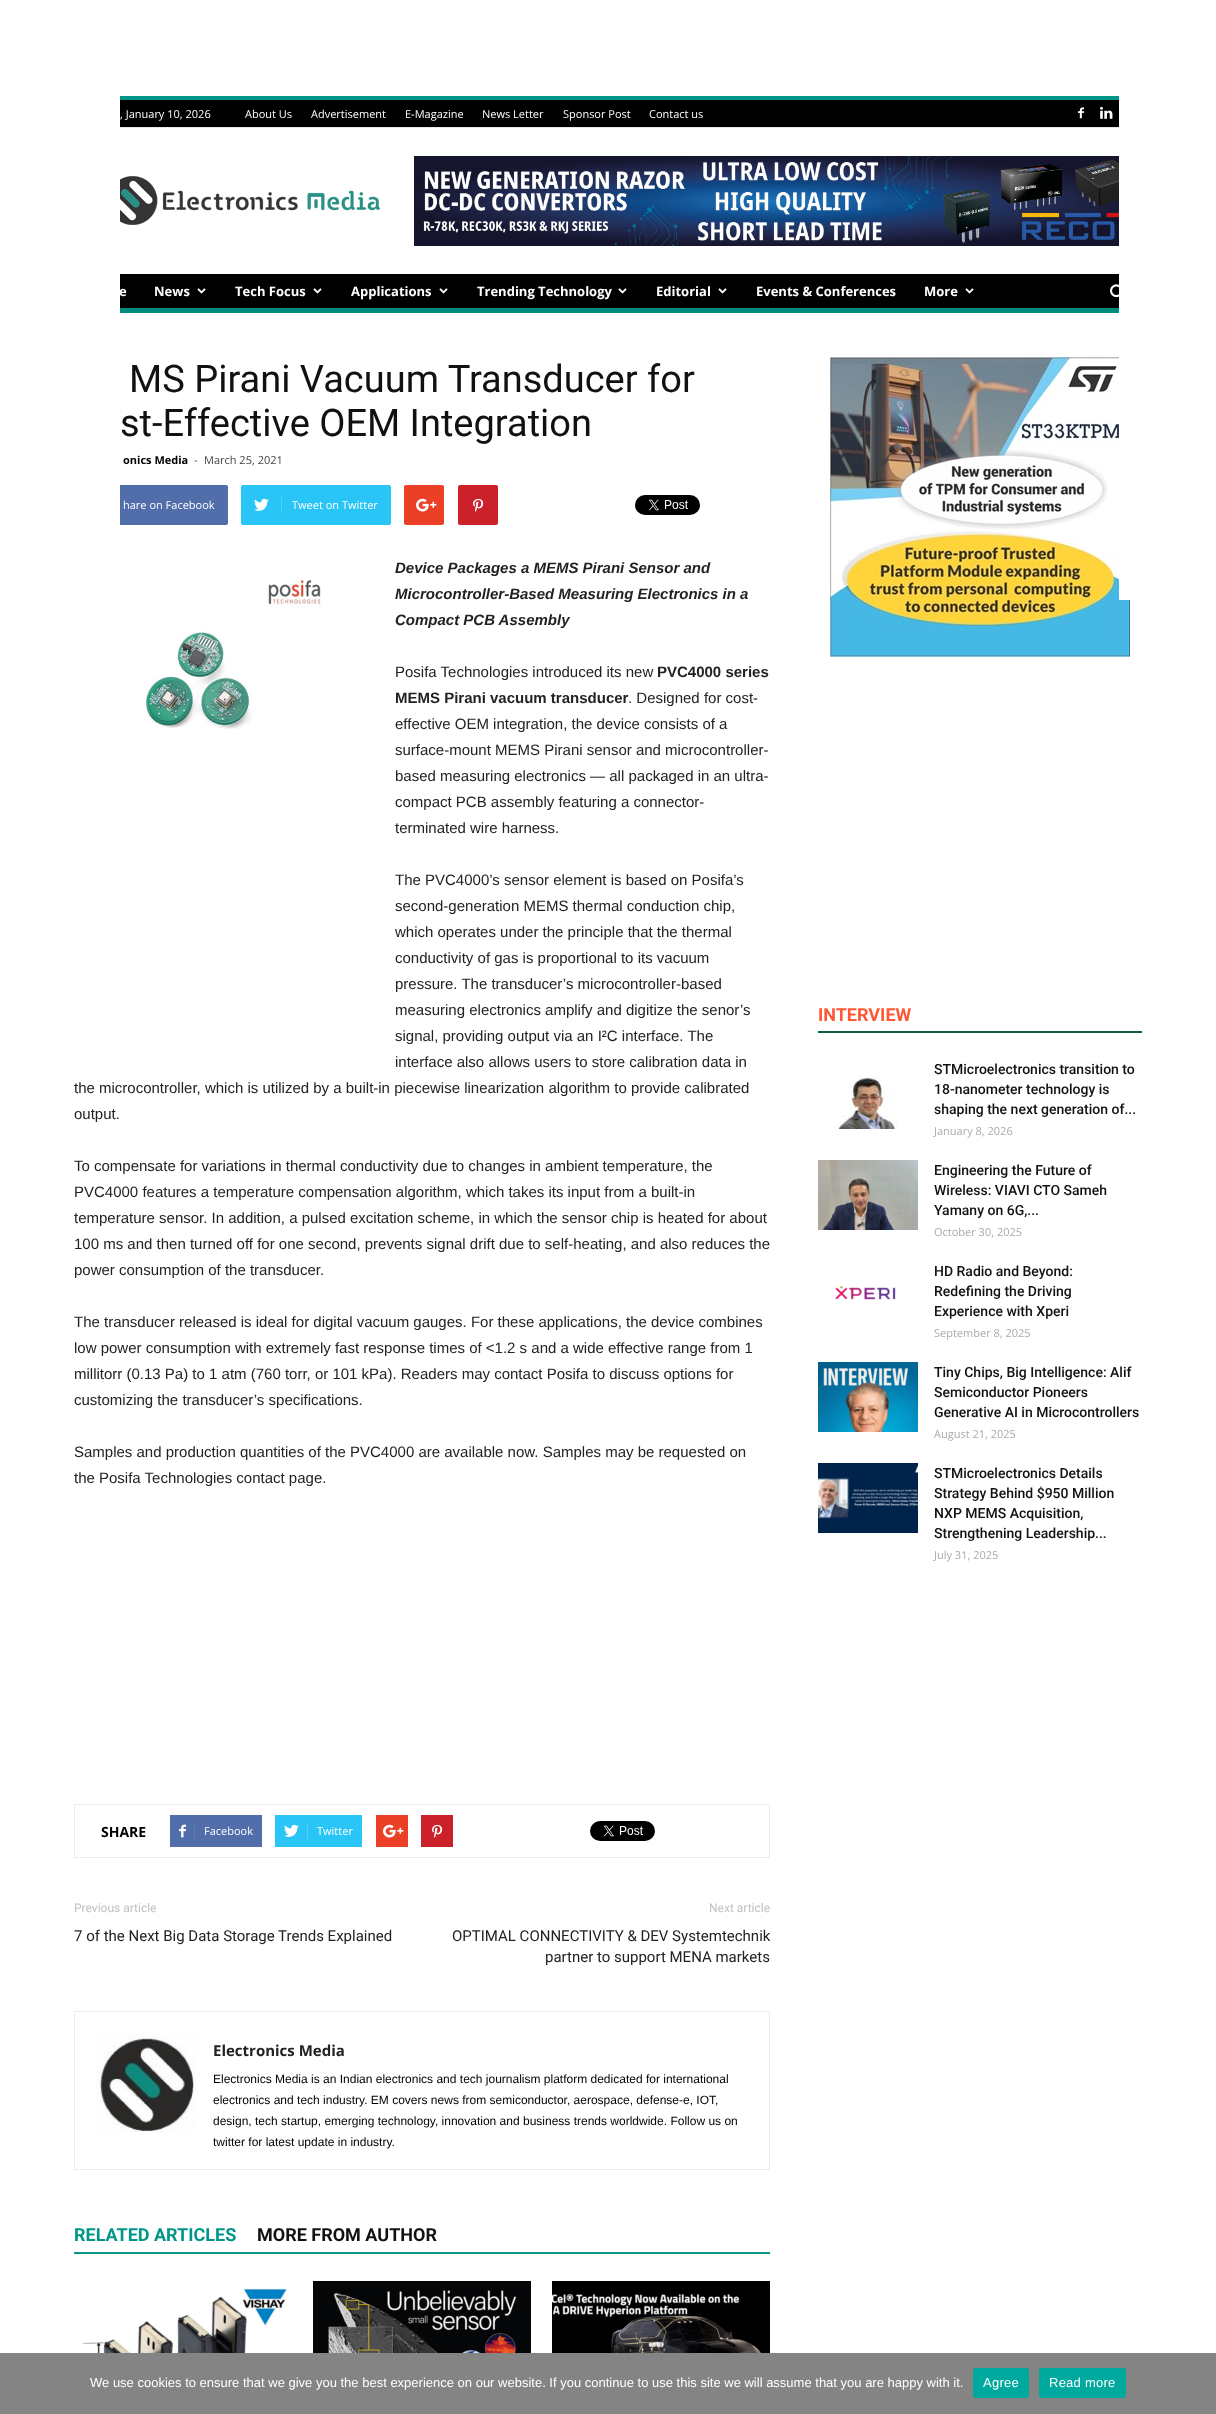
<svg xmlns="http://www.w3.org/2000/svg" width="1216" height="2414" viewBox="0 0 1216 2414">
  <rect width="100%" height="100%" fill="rgb(255,255,255)"/>
  <rect x="120" y="100" width="999" height="27" fill="rgb(0,0,0)"/>
  <rect x="120" y="96" width="999" height="4" fill="rgb(0,150,136)"/>
  <rect x="120" y="127" width="999" height="1" fill="rgb(233,233,233)"/>
  <g font-family="Open Sans" font-size="11" fill="rgb(255,255,255)">
    <text x="120" y="118">, January 10, 2026</text>
    <text x="245" y="118">About Us</text>
    <text x="311" y="118">Advertisement</text>
    <text x="405" y="118">E-Magazine</text>
    <text x="482" y="118">News Letter</text>
    <text x="563" y="118">Sponsor Post</text>
    <text x="649" y="118">Contact us</text>
  </g>
  <image x="1078" y="107" width="6" height="12" href="pic1.png"/>
  <image x="1100" y="106" width="13" height="13" href="pic2.png"/>
  <image x="120" y="176" width="260" height="49" href="pic3.png"/>
  <image x="414" y="156" width="705" height="90" href="pic4.png"/>
  <rect x="120" y="274" width="999" height="34" fill="rgb(0,0,0)"/>
  <g font-family="Open Sans" font-size="13" font-weight="bold" fill="rgb(255,255,255)">
    <text x="119" y="296">e</text>
    <text x="154" y="296">News</text>
  </g>
  <image x="197" y="288" width="9" height="6" href="pic5.png"/>
  <text x="235" y="296" font-family="Open Sans" font-size="13" font-weight="bold" fill="rgb(255,255,255)">Tech Focus</text>
  <image x="313" y="288" width="9" height="6" href="pic5.png"/>
  <text x="351" y="296" font-family="Open Sans" font-size="13" font-weight="bold" fill="rgb(255,255,255)">Applications</text>
  <image x="439" y="288" width="9" height="6" href="pic5.png"/>
  <text x="477" y="296" font-family="Open Sans" font-size="13" font-weight="bold" fill="rgb(255,255,255)">Trending Technology</text>
  <image x="618" y="288" width="9" height="6" href="pic5.png"/>
  <text x="656" y="296" font-family="Open Sans" font-size="13" font-weight="bold" fill="rgb(255,255,255)">Editorial</text>
  <image x="718" y="288" width="9" height="6" href="pic5.png"/>
  <g font-family="Open Sans" font-size="13" font-weight="bold" fill="rgb(255,255,255)">
    <text x="756" y="296">Events &amp; Conferences</text>
    <text x="924" y="296">More</text>
  </g>
  <image x="965" y="288" width="9" height="6" href="pic5.png"/>
  <image x="1110" y="284" width="9" height="14" href="pic6.png"/>
  <rect x="120" y="308" width="999" height="5" fill="rgb(0,150,136)"/>
  <image x="120" y="308" width="999" height="5" href="pic7.png"/>
  <g font-family="Roboto" font-size="38" fill="rgb(17,17,17)">
    <text x="129" y="392">MS Pirani Vacuum Transducer for</text>
    <text x="120" y="436">st-Effective OEM Integration</text>
  </g>
  <text x="123" y="464" font-family="Open Sans" font-size="11" font-weight="bold" fill="rgb(0,0,0)">onics Media</text>
  <g font-family="Open Sans" font-size="11" fill="rgb(68,68,68)">
    <text x="194" y="464">-</text>
    <text x="204" y="464">March 25, 2021</text>
  </g>
  <rect x="74" y="485" width="154" height="40" rx="2" fill="rgb(81,110,171)"/>
  <text x="123" y="509" font-family="Open Sans" font-size="11" fill="rgb(255,255,255)">hare on Facebook</text>
  <rect x="241" y="485" width="150" height="40" rx="2" fill="rgb(41,197,246)"/>
  <image x="254" y="498" width="15" height="13" href="pic8.png"/>
  <rect x="281" y="497" width="1" height="16" fill="rgb(84,209,248)"/>
  <text x="292" y="509" font-family="Open Sans" font-size="11" fill="rgb(255,255,255)">Tweet on Twitter</text>
  <rect x="404" y="485" width="40" height="40" rx="2" fill="rgb(235,64,38)"/>
  <image x="416" y="498" width="21" height="14" href="pic9.png"/>
  <rect x="458" y="485" width="40" height="40" rx="2" fill="rgb(202,33,42)"/>
  <image x="473" y="498" width="11" height="14" href="pic10.png"/>
  <image x="635" y="495" width="65" height="20" href="pic11.png"/>
  <image x="145" y="575" width="176" height="154" href="pic12.png"/>
  <g font-family="Liberation Sans" font-size="15" font-weight="bold" font-style="italic" fill="rgb(34,34,34)">
    <text>
      <tspan x="395" y="573">Device Packages a MEMS Pirani Sensor and</tspan>
      <tspan x="395" y="599">Microcontroller-Based Measuring Electronics in a</tspan>
      <tspan x="395" y="625">Compact PCB Assembly</tspan>
    </text>
  </g>
  <text x="395" y="677" font-family="Liberation Sans" font-size="15" fill="rgb(34,34,34)">Posifa Technologies introduced its new</text>
  <g font-family="Liberation Sans" font-size="15" font-weight="bold" fill="rgb(34,34,34)">
    <text x="657" y="677">PVC4000 series</text>
    <text x="395" y="703">MEMS Pirani vacuum transducer</text>
  </g>
  <g font-family="Liberation Sans" font-size="15" fill="rgb(34,34,34)">
    <text x="628" y="703">. Designed for cost-</text>
    <text>
      <tspan x="395" y="729">effective OEM integration, the device consists of a</tspan>
      <tspan x="395" y="755">surface-mount MEMS Pirani sensor and microcontroller-</tspan>
      <tspan x="395" y="781">based measuring electronics — all packaged in an ultra-</tspan>
      <tspan x="395" y="807">compact PCB assembly featuring a connector-</tspan>
      <tspan x="395" y="833">terminated wire harness.</tspan>
    </text>
    <text>
      <tspan x="395" y="885">The PVC4000’s sensor element is based on Posifa’s</tspan>
      <tspan x="395" y="911">second-generation MEMS thermal conduction chip,</tspan>
      <tspan x="395" y="937">which operates under the principle that the thermal</tspan>
      <tspan x="395" y="963">conductivity of gas is proportional to its vacuum</tspan>
      <tspan x="395" y="989">pressure. The transducer’s microcontroller-based</tspan>
      <tspan x="395" y="1015">measuring electronics amplify and digitize the senor’s</tspan>
      <tspan x="395" y="1041">signal, providing output via an I²C interface. The</tspan>
      <tspan x="395" y="1067">interface also allows users to store calibration data in</tspan>
    </text>
    <text>
      <tspan x="74" y="1093">the microcontroller, which is utilized by a built-in piecewise linearization algorithm to provide calibrated</tspan>
      <tspan x="74" y="1119">output.</tspan>
    </text>
    <text>
      <tspan x="74" y="1171">To compensate for variations in thermal conductivity due to changes in ambient temperature, the</tspan>
      <tspan x="74" y="1197">PVC4000 features a temperature compensation algorithm, which takes its input from a built-in</tspan>
      <tspan x="74" y="1223">temperature sensor. In addition, a pulsed excitation scheme, in which the sensor chip is heated for about</tspan>
      <tspan x="74" y="1249">100 ms and then turned off for one second, prevents signal drift due to self-heating, and also reduces the</tspan>
      <tspan x="74" y="1275">power consumption of the transducer.</tspan>
    </text>
    <text>
      <tspan x="74" y="1327">The transducer released is ideal for digital vacuum gauges. For these applications, the device combines</tspan>
      <tspan x="74" y="1353">low power consumption with extremely fast response times of &lt;1.2 s and a wide effective range from 1</tspan>
      <tspan x="74" y="1379">millitorr (0.13 Pa) to 1 atm (760 torr, or 101 kPa). Readers may contact Posifa to discuss options for</tspan>
      <tspan x="74" y="1405">customizing the transducer’s specifications.</tspan>
    </text>
    <text>
      <tspan x="74" y="1457">Samples and production quantities of the PVC4000 are available now. Samples may be requested on</tspan>
      <tspan x="74" y="1483">the Posifa Technologies contact page.</tspan>
    </text>
  </g>
  <rect x="74.5" y="1804.5" width="695" height="53" fill="none" stroke="rgb(237,237,237)"/>
  <text x="101" y="1837" font-family="Open Sans" font-size="14" font-weight="bold" fill="rgb(0,0,0)">SHARE</text>
  <rect x="170" y="1815" width="92" height="32" fill="rgb(81,110,171)"/>
  <image x="179" y="1824" width="7" height="14" href="pic13.png"/>
  <rect x="194" y="1823" width="1" height="16" fill="rgb(98,125,179)"/>
  <text x="204" y="1835" font-family="Open Sans" font-size="11" fill="rgb(255,255,255)">Facebook</text>
  <rect x="275" y="1815" width="87" height="32" fill="rgb(41,197,246)"/>
  <image x="284" y="1824" width="15" height="13" href="pic8.png"/>
  <rect x="307" y="1823" width="1" height="16" fill="rgb(84,209,248)"/>
  <text x="317" y="1835" font-family="Open Sans" font-size="11" fill="rgb(255,255,255)">Twitter</text>
  <rect x="376" y="1815" width="32" height="32" fill="rgb(235,64,38)"/>
  <image x="383" y="1824" width="21" height="14" href="pic9.png"/>
  <rect x="421" y="1815" width="32" height="32" fill="rgb(202,33,42)"/>
  <image x="432" y="1824" width="11" height="14" href="pic10.png"/>
  <image x="590" y="1821" width="65" height="20" href="pic14.png"/>
  <text x="74" y="1912" font-family="Roboto" font-size="12" fill="rgb(193,193,193)">Previous article</text>
  <text x="74" y="1941" font-family="Roboto" font-size="15" fill="rgb(34,34,34)">7 of the Next Big Data Storage Trends Explained</text>
  <text x="709" y="1912" font-family="Roboto" font-size="12" fill="rgb(193,193,193)">Next article</text>
  <g font-family="Roboto" font-size="15" fill="rgb(34,34,34)">
    <text x="452" y="1941">OPTIMAL CONNECTIVITY &amp; DEV Systemtechnik</text>
    <text x="545" y="1962">partner to support MENA markets</text>
  </g>
  <rect x="74.5" y="2011.5" width="695" height="158" fill="none" stroke="rgb(237,237,237)"/>
  <image x="96" y="2033" width="100" height="100" href="pic15.png"/>
  <text x="213" y="2056" font-family="Open Sans" font-size="15" font-weight="bold" fill="rgb(34,34,34)">Electronics Media</text>
  <g font-family="Liberation Sans" font-size="12" fill="rgb(0,0,0)">
    <text>
      <tspan x="213" y="2083">Electronics Media is an Indian electronics and tech journalism platform dedicated for international</tspan>
      <tspan x="213" y="2104">electronics and tech industry. EM covers news from semiconductor, aerospace, defense-e, IOT,</tspan>
      <tspan x="213" y="2125">design, tech startup, emerging technology, innovation and business trends worldwide. Follow us on</tspan>
      <tspan x="213" y="2146">twitter for latest update in industry.</tspan>
    </text>
  </g>
  <rect x="74" y="2252" width="696" height="2" fill="rgb(0,150,136)"/>
  <text x="74" y="2241" font-family="Roboto" font-size="18" font-weight="bold" fill="rgb(0,150,136)">RELATED ARTICLES</text>
  <text x="257" y="2241" font-family="Roboto" font-size="18" font-weight="bold" fill="rgb(17,17,17)">MORE FROM AUTHOR</text>
  <image x="77" y="2288" width="210" height="65" href="pic16.png"/>
  <image x="313" y="2281" width="218" height="72" href="pic17.png"/>
  <image x="552" y="2281" width="218" height="72" href="pic18.png"/>
  <image x="830" y="357" width="300" height="300" href="pic19.png"/>
  <rect x="818" y="1031" width="324" height="2" fill="rgb(13,94,54)"/>
  <text x="818" y="1021" font-family="Roboto" font-size="18" font-weight="bold" fill="rgb(255,87,51)">INTERVIEW</text>
  <image x="834" y="1075" width="64" height="54" href="pic20.png"/>
  <g font-family="Roboto" font-size="14" font-weight="500" fill="rgb(17,17,17)">
    <text>
      <tspan x="934" y="1074">STMicroelectronics transition to</tspan>
      <tspan x="934" y="1094">18-nanometer technology is</tspan>
      <tspan x="934" y="1114">shaping the next generation of...</tspan>
    </text>
  </g>
  <text x="934" y="1135" font-family="Open Sans" font-size="11" fill="rgb(170,170,170)">January 8, 2026</text>
  <image x="818" y="1160" width="100" height="70" href="pic21.png"/>
  <g font-family="Roboto" font-size="14" font-weight="500" fill="rgb(17,17,17)">
    <text>
      <tspan x="934" y="1175">Engineering the Future of</tspan>
      <tspan x="934" y="1195">Wireless: VIAVI CTO Sameh</tspan>
      <tspan x="934" y="1215">Yamany on 6G,...</tspan>
    </text>
  </g>
  <text x="934" y="1236" font-family="Open Sans" font-size="11" fill="rgb(170,170,170)">October 30, 2025</text>
  <image x="835" y="1285" width="61" height="15" href="pic22.png"/>
  <g font-family="Roboto" font-size="14" font-weight="500" fill="rgb(17,17,17)">
    <text>
      <tspan x="934" y="1276">HD Radio and Beyond:</tspan>
      <tspan x="934" y="1296">Redefining the Driving</tspan>
      <tspan x="934" y="1316">Experience with Xperi</tspan>
    </text>
  </g>
  <text x="934" y="1337" font-family="Open Sans" font-size="11" fill="rgb(170,170,170)">September 8, 2025</text>
  <image x="818" y="1362" width="100" height="70" href="pic23.png"/>
  <g font-family="Roboto" font-size="14" font-weight="500" fill="rgb(17,17,17)">
    <text>
      <tspan x="934" y="1377">Tiny Chips, Big Intelligence: Alif</tspan>
      <tspan x="934" y="1397">Semiconductor Pioneers</tspan>
      <tspan x="934" y="1417">Generative AI in Microcontrollers</tspan>
    </text>
  </g>
  <text x="934" y="1438" font-family="Open Sans" font-size="11" fill="rgb(170,170,170)">August 21, 2025</text>
  <image x="818" y="1463" width="100" height="70" href="pic24.png"/>
  <g font-family="Roboto" font-size="14" font-weight="500" fill="rgb(17,17,17)">
    <text>
      <tspan x="934" y="1478">STMicroelectronics Details</tspan>
      <tspan x="934" y="1498">Strategy Behind $950 Million</tspan>
      <tspan x="934" y="1518">NXP MEMS Acquisition,</tspan>
      <tspan x="934" y="1538">Strengthening Leadership...</tspan>
    </text>
  </g>
  <text x="934" y="1559" font-family="Open Sans" font-size="11" fill="rgb(170,170,170)">July 31, 2025</text>
  <rect x="74" y="485" width="46" height="40" fill="rgb(255,255,255)"/>
  <rect x="1119" y="357" width="11" height="243" fill="rgb(255,255,255)"/>
  <rect x="0" y="2353" width="1216" height="61" fill="rgb(132,132,132)"/>
  <text x="90" y="2387" font-family="Liberation Sans" font-size="13" fill="rgb(255,255,255)">We use cookies to ensure that we give you the best experience on our website. If you continue to use this site we will assume that you are happy with it.</text>
  <rect x="973" y="2368" width="56" height="30" rx="3" fill="rgb(0,169,157)"/>
  <text x="983" y="2387" font-family="Liberation Sans" font-size="13" letter-spacing="0.25" fill="rgb(255,255,255)">Agree</text>
  <rect x="1039" y="2368" width="87" height="30" rx="3" fill="rgb(0,169,157)"/>
  <text x="1049" y="2387" font-family="Liberation Sans" font-size="13" letter-spacing="0.25" fill="rgb(255,255,255)">Read more</text>
</svg>
